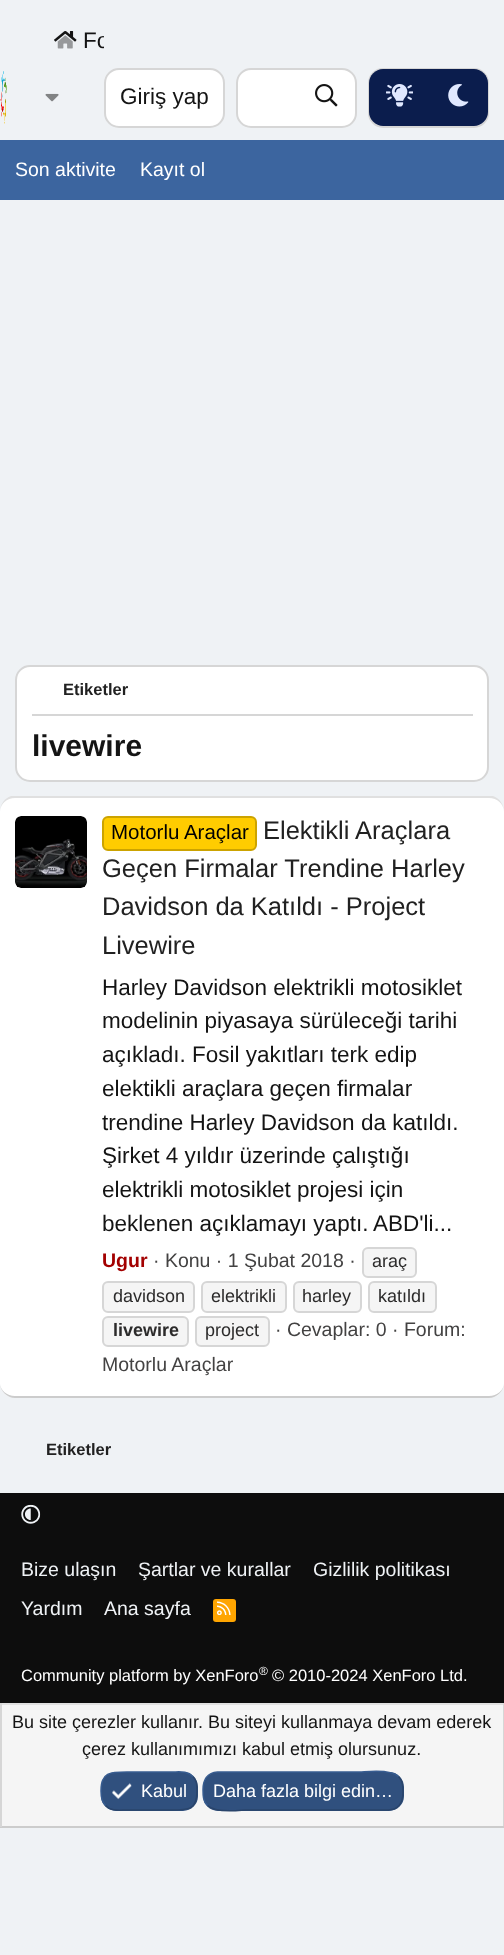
<svg xmlns="http://www.w3.org/2000/svg" width="504" height="1955" viewBox="0 0 504 1955">
  <defs>
    <clipPath id="clip1"><rect x="17" y="12" width="87" height="116"/></clipPath>
  </defs>
  <rect width="100%" height="100%" fill="rgb(239,242,245)"/>
  <image x="54" y="31" width="23" height="18" href="pic1.png"/>
  <g clip-path="url(#clip1)">
    <text x="83" y="48" font-family="Liberation Sans" font-size="22.5" fill="rgb(20,20,20)">Fo</text>
  </g>
  <image x="45" y="93" width="14" height="9" href="pic2.png"/>
  <image x="0" y="71" width="7" height="53" href="pic3.png"/>
  <rect x="105" y="69" width="119" height="58" rx="14" fill="rgb(255,255,255)" stroke="rgb(214,214,214)" stroke-width="2"/>
  <text x="120" y="104" font-family="Liberation Sans" font-size="22.5" fill="rgb(20,20,20)">Giriş yap</text>
  <rect x="237" y="69" width="119" height="58" rx="14" fill="rgb(255,255,255)" stroke="rgb(214,214,214)" stroke-width="2"/>
  <image x="315" y="84" width="23" height="23" href="pic4.png"/>
  <rect x="369" y="69" width="119" height="58" rx="14" fill="none" stroke="rgb(214,214,214)" stroke-width="2"/>
  <path d="M383 69H429V126H383C375.5 126 369 119.5 369 112V83C369 75.5 375.5 69 383 69Z" fill="rgb(11,29,77)"/>
  <image x="386" y="84" width="27" height="23" href="pic5.png"/>
  <path d="M429 69H474C481.5 69 488 75.5 488 83V112C488 119.5 481.5 126 474 126H429Z" fill="rgb(11,29,77)"/>
  <image x="448" y="84" width="21" height="23" href="pic6.png"/>
  <rect x="0" y="140" width="504" height="60" fill="rgb(60,101,159)"/>
  <g font-family="Liberation Sans" font-size="19.5" fill="rgb(255,255,255)">
    <text x="15" y="176">Son aktivite</text>
    <text x="140" y="176">Kayıt ol</text>
  </g>
  <rect x="16" y="666" width="472" height="115" rx="14" fill="rgb(255,255,255)" stroke="rgb(214,214,214)" stroke-width="2"/>
  <rect x="32" y="714" width="441" height="2" fill="rgb(214,214,214)"/>
  <text x="63" y="695" font-family="Liberation Sans" font-size="16.5" font-weight="bold" fill="rgb(33,33,33)">Etiketler</text>
  <text x="32" y="756" font-family="Liberation Sans" font-size="30" font-weight="bold" fill="rgb(20,20,20)">livewire</text>
  <rect x="0" y="797" width="504" height="601" rx="15" fill="rgb(255,255,255)"/>
  <path d="M15 798C7 798 0 804 0 812C0 804 5 798 11 796H493C499 798 504 804 504 812C504 804 497 798 489 798Z" fill="rgb(224,224,224)"/>
  <path d="M489 1398C497 1398 504 1391 504 1383C504 1390 497 1396 489 1396H15C7 1396 0 1390 0 1383C0 1391 7 1398 15 1398Z" fill="rgb(204,204,204)"/>
  <image x="15" y="816" width="72" height="72" href="pic7.png"/>
  <rect x="103" y="817" width="153" height="33" rx="5" fill="rgb(255,204,0)" stroke="rgb(204,163,0)" stroke-width="2"/>
  <text x="111" y="839" font-family="Liberation Sans" font-size="20.5" fill="rgb(0,0,0)">Motorlu Araçlar</text>
  <g font-family="Liberation Sans" font-size="25.5" fill="rgb(33,33,33)">
    <text x="263" y="839">Elektikli Araçlara</text>
    <text>
      <tspan x="102" y="877">Geçen Firmalar Trendine Harley</tspan>
      <tspan x="102" y="915">Davidson da Katıldı - Project</tspan>
      <tspan x="102" y="954">Livewire</tspan>
    </text>
  </g>
  <g font-family="Liberation Sans" font-size="22.5" fill="rgb(20,20,20)">
    <text>
      <tspan x="102" y="995">Harley Davidson elektrikli motosiklet</tspan>
      <tspan x="102" y="1028">modelinin piyasaya sürüleceği tarihi</tspan>
      <tspan x="102" y="1062">açıkladı. Fosil yakıtları terk edip</tspan>
      <tspan x="102" y="1096">elektikli araçlara geçen firmalar</tspan>
      <tspan x="102" y="1130">trendine Harley Davidson da katıldı.</tspan>
      <tspan x="102" y="1163">Şirket 4 yıldır üzerinde çalıştığı</tspan>
      <tspan x="102" y="1197">elektrikli motosiklet projesi için</tspan>
      <tspan x="102" y="1231">beklenen açıklamayı yaptı.</tspan>
    </text>
    <text x="373" y="1231">ABD'li...</text>
  </g>
  <text x="102" y="1267" font-family="Liberation Sans" font-size="19.5" font-weight="bold" fill="rgb(163,0,0)">Ugur</text>
  <text x="153" y="1267" font-family="Liberation Sans" font-size="19.5" fill="rgb(67,66,66)">· Konu · 1 Şubat 2018 ·</text>
  <rect x="363" y="1248" width="53" height="29" rx="5" fill="rgb(245,245,245)" stroke="rgb(214,214,214)" stroke-width="2"/>
  <text x="372" y="1267" font-family="Liberation Sans" font-size="18" fill="rgb(44,43,43)">araç</text>
  <rect x="103" y="1282" width="91" height="30" rx="5" fill="rgb(245,245,245)" stroke="rgb(214,214,214)" stroke-width="2"/>
  <text x="113" y="1302" font-family="Liberation Sans" font-size="18" fill="rgb(44,43,43)">davidson</text>
  <rect x="202" y="1282" width="84" height="30" rx="5" fill="rgb(245,245,245)" stroke="rgb(214,214,214)" stroke-width="2"/>
  <text x="211" y="1302" font-family="Liberation Sans" font-size="18" fill="rgb(44,43,43)">elektrikli</text>
  <rect x="294" y="1282" width="67" height="30" rx="5" fill="rgb(245,245,245)" stroke="rgb(214,214,214)" stroke-width="2"/>
  <text x="302" y="1302" font-family="Liberation Sans" font-size="18" fill="rgb(44,43,43)">harley</text>
  <rect x="369" y="1282" width="67" height="30" rx="5" fill="rgb(245,245,245)" stroke="rgb(214,214,214)" stroke-width="2"/>
  <text x="378" y="1302" font-family="Liberation Sans" font-size="18" fill="rgb(44,43,43)">katıldı</text>
  <rect x="103" y="1317" width="85" height="29" rx="5" fill="rgb(245,245,245)" stroke="rgb(214,214,214)" stroke-width="2"/>
  <text x="113" y="1336" font-family="Liberation Sans" font-size="18" font-weight="bold" fill="rgb(44,43,43)">livewire</text>
  <rect x="196" y="1317" width="73" height="29" rx="5" fill="rgb(245,245,245)" stroke="rgb(214,214,214)" stroke-width="2"/>
  <text x="205" y="1336" font-family="Liberation Sans" font-size="18" fill="rgb(44,43,43)">project</text>
  <g font-family="Liberation Sans" font-size="19.5" fill="rgb(67,66,66)">
    <text x="275" y="1336">· Cevaplar: 0 · Forum:</text>
    <text x="102" y="1371">Motorlu Araçlar</text>
  </g>
  <text x="46" y="1455" font-family="Liberation Sans" font-size="16.5" font-weight="bold" fill="rgb(33,33,33)">Etiketler</text>
  <rect x="0" y="1493" width="504" height="210" fill="rgb(13,13,13)"/>
  <image x="21" y="1504" width="20" height="20" href="pic8.png"/>
  <g font-family="Liberation Sans" font-size="19.5" fill="rgb(239,242,245)">
    <text x="21" y="1576">Bize ulaşın</text>
    <text x="138" y="1576">Şartlar ve kurallar</text>
    <text x="313" y="1576">Gizlilik politikası</text>
    <text x="21" y="1615">Yardım</text>
    <text x="104" y="1615">Ana sayfa</text>
  </g>
  <rect x="213" y="1599" width="23" height="23" rx="3" fill="rgb(255,165,0)"/>
  <image x="217" y="1601" width="14" height="14" href="pic9.png"/>
  <text x="21" y="1681" font-family="Liberation Sans" font-size="16.5" fill="rgb(255,255,255)">Community platform by XenForo</text>
  <text x="259" y="1675" font-family="Liberation Sans" font-size="12" fill="rgb(255,255,255)">®</text>
  <text x="272" y="1681" font-family="Liberation Sans" font-size="16.5" fill="rgb(255,255,255)">© 2010-2024 XenForo Ltd.</text>
  <rect x="2" y="1705" width="501" height="121" fill="rgb(245,245,245)"/>
  <rect x="0" y="1703" width="504" height="2" fill="rgb(224,224,224)"/>
  <rect x="503" y="1703" width="1" height="124" fill="rgb(214,214,214)"/>
  <rect x="0" y="1826" width="504" height="2" fill="rgb(204,204,204)"/>
  <rect x="0" y="1703" width="2" height="124" fill="rgb(214,214,214)"/>
  <g font-family="Liberation Sans" font-size="18" fill="rgb(20,20,20)">
    <text x="12" y="1728">Bu site çerezler kullanır. Bu siteyi kullanmaya devam ederek</text>
    <text x="82" y="1755">çerez kullanımımızı kabul etmiş olursunuz.</text>
  </g>
  <rect x="101" y="1772" width="97" height="39" rx="15" fill="rgb(48,80,126)"/>
  <path d="M193 1776.5C197 1780.5 197 1785.5 197 1791C197 1810 188.5 1810 172 1810H127C119.5 1810 111 1811.5 105.5 1805.5" fill="none" stroke="rgb(41,68,107)" stroke-width="1.5"/>
  <path d="M105.5 1805.5C101.5 1801.5 101 1796.5 101 1791C101 1772 110 1772 127 1772H172C179 1772 187.5 1770.5 193 1776.5" fill="none" stroke="rgb(55,92,144)" stroke-width="1.5"/>
  <image x="112" y="1783" width="20" height="17" href="pic10.png"/>
  <text x="141" y="1797" font-family="Liberation Sans" font-size="18" fill="rgb(255,255,255)">Kabul</text>
  <rect x="203" y="1772" width="201" height="39" rx="15" fill="rgb(48,80,126)"/>
  <path d="M398.5 1776.5C403 1781 403 1786.5 403 1792.5C403 1801.5 399 1809.5 388.5 1810H246C241 1810 216 1814 207.5 1805.5" fill="none" stroke="rgb(41,68,107)" stroke-width="1.5"/>
  <path d="M207.5 1805.5C203 1801 203 1795.5 203 1789.5C203 1780.5 207 1772.5 217.5 1772H360C365 1772 390 1768 398.5 1776.5" fill="none" stroke="rgb(55,92,144)" stroke-width="1.5"/>
  <text x="213" y="1797" font-family="Liberation Sans" font-size="18" fill="rgb(255,255,255)">Daha fazla bilgi edin…</text>
</svg>
